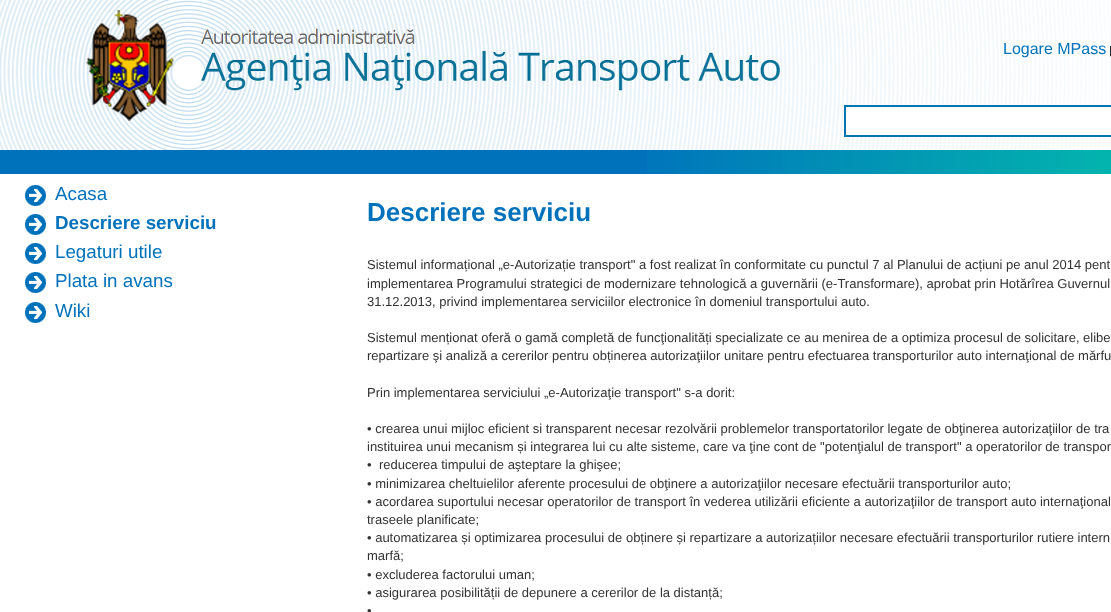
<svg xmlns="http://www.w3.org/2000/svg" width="1111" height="612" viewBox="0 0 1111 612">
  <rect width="100%" height="100%" fill="rgb(255,255,255)"/>
  <image x="0" y="0" width="1111" height="150" href="pic1.png"/>
  <image x="86" y="10" width="694" height="111" href="pic2.png"/>
  <text x="1003" y="54" font-family="Liberation Sans" font-size="16" fill="rgb(0,114,187)">Logare MPass</text>
  <text x="1109" y="54" font-family="Liberation Sans" font-size="11" fill="rgb(0,0,0)">|</text>
  <rect x="845" y="106" width="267" height="30" fill="rgb(255,255,255)" stroke="rgb(0,118,178)" stroke-width="2"/>
  <rect x="0" y="150" width="647" height="24" fill="rgb(0,114,187)"/>
  <image x="647" y="150" width="464" height="24" href="pic3.png"/>
  <image x="25" y="185" width="21" height="21" href="pic4.png"/>
  <text x="55" y="200" font-family="Liberation Sans" font-size="18.75" fill="rgb(0,114,187)">Acasa</text>
  <image x="25" y="214" width="21" height="21" href="pic4.png"/>
  <text x="55" y="229" font-family="Liberation Sans" font-size="18.75" font-weight="bold" fill="rgb(0,114,187)">Descriere serviciu</text>
  <image x="25" y="243" width="21" height="21" href="pic4.png"/>
  <text x="55" y="258" font-family="Liberation Sans" font-size="18.75" fill="rgb(0,114,187)">Legaturi utile</text>
  <image x="25" y="272" width="21" height="21" href="pic4.png"/>
  <text x="55" y="287" font-family="Liberation Sans" font-size="18.75" fill="rgb(0,114,187)">Plata in avans</text>
  <image x="25" y="302" width="21" height="21" href="pic4.png"/>
  <text x="55" y="317" font-family="Liberation Sans" font-size="18.75" fill="rgb(0,114,187)">Wiki</text>
  <text x="367" y="221" font-family="Liberation Sans" font-size="26" font-weight="bold" fill="rgb(0,114,187)">Descriere serviciu</text>
  <g font-family="Liberation Sans" font-size="13" fill="rgb(50,50,50)">
    <text>
      <tspan x="367" y="269">Sistemul informațional „e-Autorizație transport" a fost realizat în conformitate cu punctul 7 al Planului de acțiuni pe anul 2014 pent</tspan>
      <tspan x="367" y="288">implementarea Programului strategici de modernizare tehnologică a guvernării (e-Transformare), aprobat prin Hotărîrea Guvernul</tspan>
      <tspan x="367" y="306">31.12.2013, privind implementarea serviciilor electronice în domeniul transportului auto.</tspan>
    </text>
    <text>
      <tspan x="367" y="342">Sistemul menționat oferă o gamă completă de funcţionalități specializate ce au menirea de a optimiza procesul de solicitare, elibe</tspan>
      <tspan x="367" y="360">repartizare şi analiză a cererilor pentru obținerea autorizaţiilor unitare pentru efectuarea transporturilor auto internaţional de mărfu</tspan>
    </text>
    <text x="367" y="397">Prin implementarea serviciului „e-Autorizaţie transport" s-a dorit:</text>
    <text>
      <tspan x="367" y="433">• crearea unui mijloc eficient si transparent necesar rezolvării problemelor transportatorilor legate de obţinerea autorizaţiilor de tra</tspan>
      <tspan x="367" y="451">instituirea unui mecanism și integrarea lui cu alte sisteme, care va ţine cont de "potenţialul de transport" a operatorilor de transpor</tspan>
      <tspan x="367" y="469">•</tspan>
    </text>
    <text x="379" y="469">reducerea timpului de aşteptare la ghişee;</text>
    <text>
      <tspan x="367" y="488">• minimizarea cheltuielilor aferente procesului de obţinere a autorizaţiilor necesare efectuării transporturilor auto;</tspan>
      <tspan x="367" y="506">• acordarea suportului necesar operatorilor de transport în vederea utilizării eficiente a autorizaţiilor de transport auto internaţional</tspan>
      <tspan x="367" y="524">traseele planificate;</tspan>
      <tspan x="367" y="542">• automatizarea și optimizarea procesului de obținere și repartizare a autorizațiilor necesare efectuării transporturilor rutiere intern</tspan>
      <tspan x="367" y="560">marfă;</tspan>
      <tspan x="367" y="579">• excluderea factorului uman;</tspan>
      <tspan x="367" y="597">• asigurarea posibilității de depunere a cererilor de la distanță;</tspan>
      <tspan x="367" y="615">•</tspan>
    </text>
  </g>
</svg>
